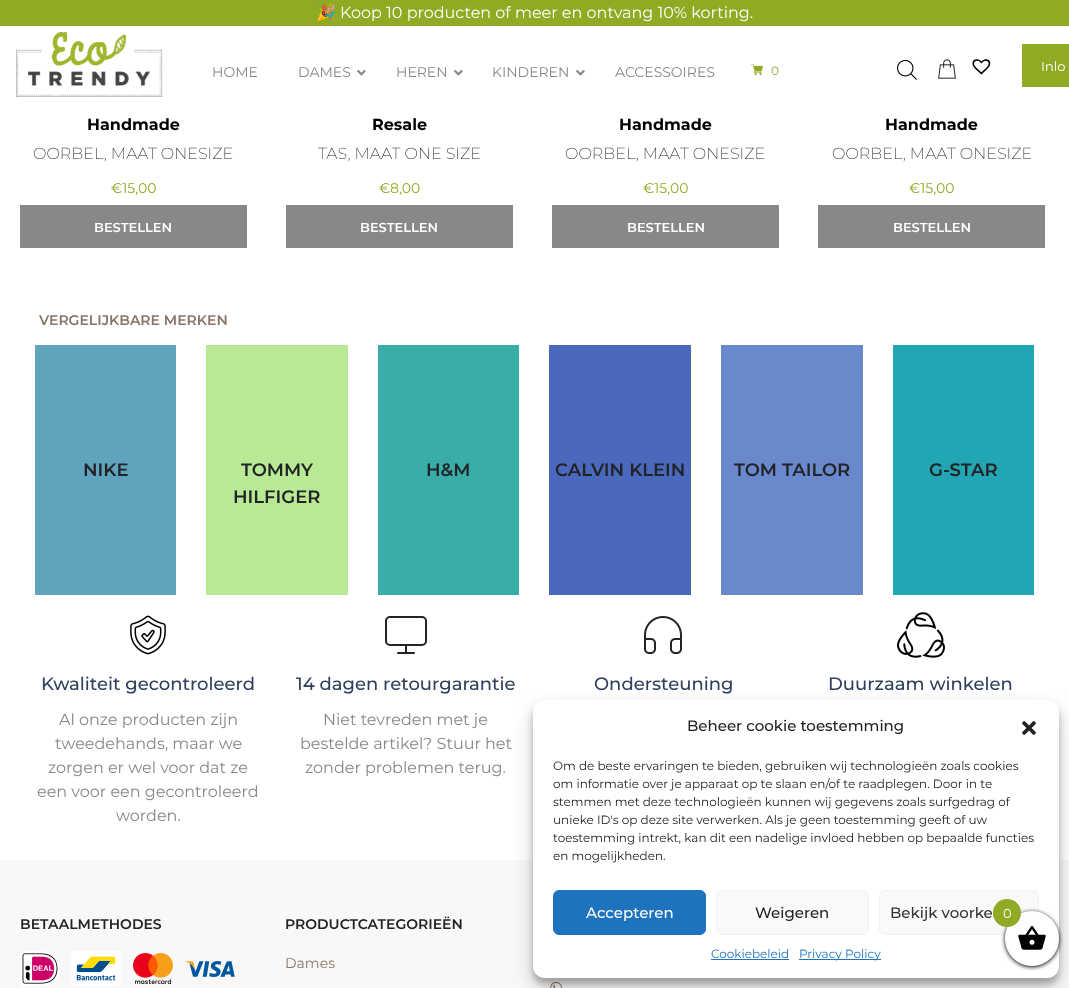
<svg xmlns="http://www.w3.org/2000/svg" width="1069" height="988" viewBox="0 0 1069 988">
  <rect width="100%" height="100%" fill="rgb(255,255,255)"/>
  <rect x="0" y="0" width="1069" height="26" fill="rgb(142,171,35)"/>
  <text x="316" y="18" font-family="Noto Color Emoji" font-size="16" fill="rgb(255,255,255)">🎉</text>
  <text x="340" y="18" font-family="Montserrat" font-size="16" fill="rgb(255,255,255)">Koop 10 producten of meer en ontvang 10% korting.</text>
  <image x="16" y="32" width="147" height="65" href="pic1.png"/>
  <g font-family="Montserrat" font-size="14" fill="rgb(136,136,136)">
    <text x="212" y="77">HOME</text>
    <text x="298" y="77">DAMES</text>
  </g>
  <image x="357" y="70" width="9" height="6" href="pic2.png"/>
  <text x="396" y="77" font-family="Montserrat" font-size="14" fill="rgb(136,136,136)">HEREN</text>
  <image x="454" y="70" width="9" height="6" href="pic2.png"/>
  <text x="492" y="77" font-family="Montserrat" font-size="14" fill="rgb(136,136,136)">KINDEREN</text>
  <image x="576" y="70" width="9" height="6" href="pic2.png"/>
  <text x="615" y="77" font-family="Montserrat" font-size="14" fill="rgb(136,136,136)">ACCESSOIRES</text>
  <image x="751" y="64" width="12" height="11" href="pic3.png"/>
  <text x="771" y="75" font-family="Montserrat" font-size="12" fill="rgb(142,171,35)">0</text>
  <image x="897" y="60" width="20" height="20" href="pic4.png"/>
  <image x="938" y="59" width="18" height="20" href="pic5.png"/>
  <image x="972" y="59" width="19" height="16" href="pic6.png"/>
  <rect x="1022" y="44" width="47" height="43" fill="rgb(142,171,35)"/>
  <text x="1041" y="71" font-family="Montserrat" font-size="13" fill="rgb(255,255,255)">Inlo</text>
  <text x="87" y="130" font-family="Montserrat" font-size="16" font-weight="bold" fill="rgb(0,0,0)">Handmade</text>
  <text x="33" y="159" font-family="Montserrat" font-size="16" font-weight="200" fill="rgb(34,35,38)">OORBEL, MAAT ONESIZE</text>
  <text x="111" y="193" font-family="Montserrat" font-size="14" fill="rgb(142,171,35)">€15,00</text>
  <rect x="20" y="205" width="227" height="43" fill="rgb(136,136,136)"/>
  <text x="94" y="232" font-family="Montserrat" font-size="13" font-weight="600" fill="rgb(255,255,255)">BESTELLEN</text>
  <text x="372" y="130" font-family="Montserrat" font-size="16" font-weight="bold" fill="rgb(0,0,0)">Resale</text>
  <text x="318" y="159" font-family="Montserrat" font-size="16" font-weight="200" fill="rgb(34,35,38)">TAS, MAAT ONE SIZE</text>
  <text x="379" y="193" font-family="Montserrat" font-size="14" fill="rgb(142,171,35)">€8,00</text>
  <rect x="286" y="205" width="227" height="43" fill="rgb(136,136,136)"/>
  <text x="360" y="232" font-family="Montserrat" font-size="13" font-weight="600" fill="rgb(255,255,255)">BESTELLEN</text>
  <text x="619" y="130" font-family="Montserrat" font-size="16" font-weight="bold" fill="rgb(0,0,0)">Handmade</text>
  <text x="565" y="159" font-family="Montserrat" font-size="16" font-weight="200" fill="rgb(34,35,38)">OORBEL, MAAT ONESIZE</text>
  <text x="643" y="193" font-family="Montserrat" font-size="14" fill="rgb(142,171,35)">€15,00</text>
  <rect x="552" y="205" width="227" height="43" fill="rgb(136,136,136)"/>
  <text x="627" y="232" font-family="Montserrat" font-size="13" font-weight="600" fill="rgb(255,255,255)">BESTELLEN</text>
  <text x="885" y="130" font-family="Montserrat" font-size="16" font-weight="bold" fill="rgb(0,0,0)">Handmade</text>
  <text x="832" y="159" font-family="Montserrat" font-size="16" font-weight="200" fill="rgb(34,35,38)">OORBEL, MAAT ONESIZE</text>
  <text x="909" y="193" font-family="Montserrat" font-size="14" fill="rgb(142,171,35)">€15,00</text>
  <rect x="818" y="205" width="227" height="43" fill="rgb(136,136,136)"/>
  <text x="893" y="232" font-family="Montserrat" font-size="13" font-weight="600" fill="rgb(255,255,255)">BESTELLEN</text>
  <text x="39" y="325" font-family="Montserrat" font-size="14" font-weight="600" fill="rgb(136,117,104)">VERGELIJKBARE MERKEN</text>
  <rect x="35" y="345" width="141" height="250" fill="rgb(96,163,188)"/>
  <text x="83" y="476" font-family="Montserrat" font-size="18" font-weight="600" fill="rgb(34,35,38)">NIKE</text>
  <rect x="206" y="345" width="142" height="250" fill="rgb(184,233,148)"/>
  <g font-family="Montserrat" font-size="18" font-weight="600" fill="rgb(34,35,38)">
    <text x="241" y="476">TOMMY</text>
    <text x="233" y="503">HILFIGER</text>
  </g>
  <rect x="378" y="345" width="141" height="250" fill="rgb(56,173,169)"/>
  <text x="426" y="476" font-family="Montserrat" font-size="18" font-weight="600" fill="rgb(34,35,38)">H&amp;M</text>
  <rect x="549" y="345" width="142" height="250" fill="rgb(74,105,189)"/>
  <text x="555" y="476" font-family="Montserrat" font-size="18" font-weight="600" fill="rgb(34,35,38)">CALVIN KLEIN</text>
  <rect x="721" y="345" width="142" height="250" fill="rgb(106,137,204)"/>
  <text x="734" y="476" font-family="Montserrat" font-size="18" font-weight="600" fill="rgb(34,35,38)">TOM TAILOR</text>
  <rect x="893" y="345" width="141" height="250" fill="rgb(34,166,179)"/>
  <text x="929" y="476" font-family="Montserrat" font-size="18" font-weight="600" fill="rgb(34,35,38)">G-STAR</text>
  <image x="130" y="615" width="36" height="40" href="pic7.png"/>
  <text x="41" y="690" font-family="Montserrat" font-size="18" font-weight="500" fill="rgb(47,64,94)">Kwaliteit gecontroleerd</text>
  <g font-family="Montserrat" font-size="16" fill="rgb(136,136,136)">
    <text x="59" y="725">Al onze producten zijn</text>
    <text x="55" y="749">tweedehands, maar we</text>
    <text x="48" y="773">zorgen er wel voor dat ze</text>
    <text x="37" y="797">een voor een gecontroleerd</text>
    <text x="116" y="821">worden.</text>
  </g>
  <rect x="386" y="617" width="40" height="28" rx="4" fill="none" stroke="rgb(33,37,41)" stroke-width="2"/>
  <path d="M398 653H414M406 645V653" fill="none" stroke="rgb(33,37,41)" stroke-width="2" stroke-linecap="round" stroke-linejoin="round"/>
  <text x="296" y="690" font-family="Montserrat" font-size="18" font-weight="500" fill="rgb(47,64,94)">14 dagen retourgarantie</text>
  <g font-family="Montserrat" font-size="16" fill="rgb(136,136,136)">
    <text x="323" y="725">Niet tevreden met je</text>
    <text x="300" y="749">bestelde artikel? Stuur het</text>
    <text x="305" y="773">zonder problemen terug.</text>
  </g>
  <image x="644" y="616" width="38" height="38" href="pic8.png"/>
  <text x="594" y="690" font-family="Montserrat" font-size="18" font-weight="500" fill="rgb(47,64,94)">Ondersteuning</text>
  <image x="897" y="612" width="48" height="46" href="pic9.png"/>
  <text x="828" y="690" font-family="Montserrat" font-size="18" font-weight="500" fill="rgb(47,64,94)">Duurzaam winkelen</text>
  <rect x="0" y="860" width="1069" height="128" fill="rgb(250,248,247)"/>
  <text x="20" y="929" font-family="Montserrat" font-size="14" font-weight="600" fill="rgb(34,35,38)">BETAALMETHODES</text>
  <image x="20" y="951" width="40" height="35" href="pic10.png"/>
  <image x="71" y="951" width="50" height="35" href="pic11.png"/>
  <image x="133" y="953" width="40" height="31" href="pic12.png"/>
  <image x="185" y="961" width="50" height="16" href="pic13.png"/>
  <text x="285" y="929" font-family="Montserrat" font-size="14" font-weight="600" fill="rgb(34,35,38)">PRODUCTCATEGORIEËN</text>
  <text x="285" y="968" font-family="Montserrat" font-size="14" fill="rgb(136,117,104)">Dames</text>
  <image x="550" y="982" width="12" height="6" href="pic14.png"/>
  <rect x="533" y="706" width="526" height="278" rx="12" fill="rgba(0,0,0,0.23)" filter="blur(3px)"/>
  <rect x="533" y="710" width="526" height="278" rx="12" fill="rgba(0,0,0,0.19)" filter="blur(10px)"/>
  <rect x="533" y="700" width="526" height="278" rx="12" fill="rgb(255,255,255)"/>
  <text x="687" y="731" font-family="Montserrat" font-size="15" font-weight="500" fill="rgb(34,35,38)">Beheer cookie toestemming</text>
  <image x="1022" y="721" width="14" height="14" href="pic15.png"/>
  <g font-family="Montserrat" font-size="12" fill="rgb(34,35,38)">
    <text>
      <tspan x="553" y="770">Om de beste ervaringen te bieden, gebruiken wij technologieën zoals cookies</tspan>
      <tspan x="553" y="788">om informatie over je apparaat op te slaan en/of te raadplegen. Door in te</tspan>
      <tspan x="553" y="806">stemmen met deze technologieën kunnen wij gegevens zoals surfgedrag of</tspan>
      <tspan x="553" y="824">unieke ID's op deze site verwerken. Als je geen toestemming geeft of uw</tspan>
      <tspan x="553" y="842">toestemming intrekt, kan dit een nadelige invloed hebben op bepaalde functies</tspan>
      <tspan x="553" y="860">en mogelijkheden.</tspan>
    </text>
  </g>
  <rect x="553.5" y="890.5" width="152" height="44" rx="5.5" fill="rgb(30,115,190)" stroke="rgb(30,115,190)"/>
  <text x="586" y="918" font-family="Montserrat" font-size="15" font-weight="500" fill="rgb(255,255,255)">Accepteren</text>
  <rect x="716.5" y="890.5" width="152" height="44" rx="5.5" fill="rgb(249,249,249)" stroke="rgb(242,242,242)"/>
  <text x="755" y="918" font-family="Montserrat" font-size="15" font-weight="500" fill="rgb(34,35,38)">Weigeren</text>
  <rect x="879.5" y="890.5" width="159" height="44" rx="5.5" fill="rgb(249,249,249)" stroke="rgb(242,242,242)"/>
  <text x="890" y="918" font-family="Montserrat" font-size="15" font-weight="500" fill="rgb(51,51,51)">Bekijk voorke</text>
  <text x="711" y="958" font-family="Montserrat" font-size="12" fill="rgb(30,115,190)">Cookiebeleid</text>
  <rect x="711" y="959" width="78" height="1" fill="rgb(30,115,190)"/>
  <rect x="799" y="959" width="82" height="1" fill="rgb(30,115,190)"/>
  <text x="799" y="958" font-family="Montserrat" font-size="12" fill="rgb(30,115,190)">Privacy Policy</text>
  <rect x="1005" y="912" width="54" height="55" rx="27" fill="rgb(0,0,0)" filter="blur(2px)"/>
  <rect x="1005" y="911" width="54" height="55" rx="27" fill="rgb(255,255,255)"/>
  <circle cx="1007" cy="913" r="14" fill="rgb(142,171,35)"/>
  <text x="1003" y="918" font-family="Montserrat" font-size="13" fill="rgb(255,255,255)">0</text>
  <image x="1018" y="926" width="28" height="24" href="pic16.png"/>
</svg>
